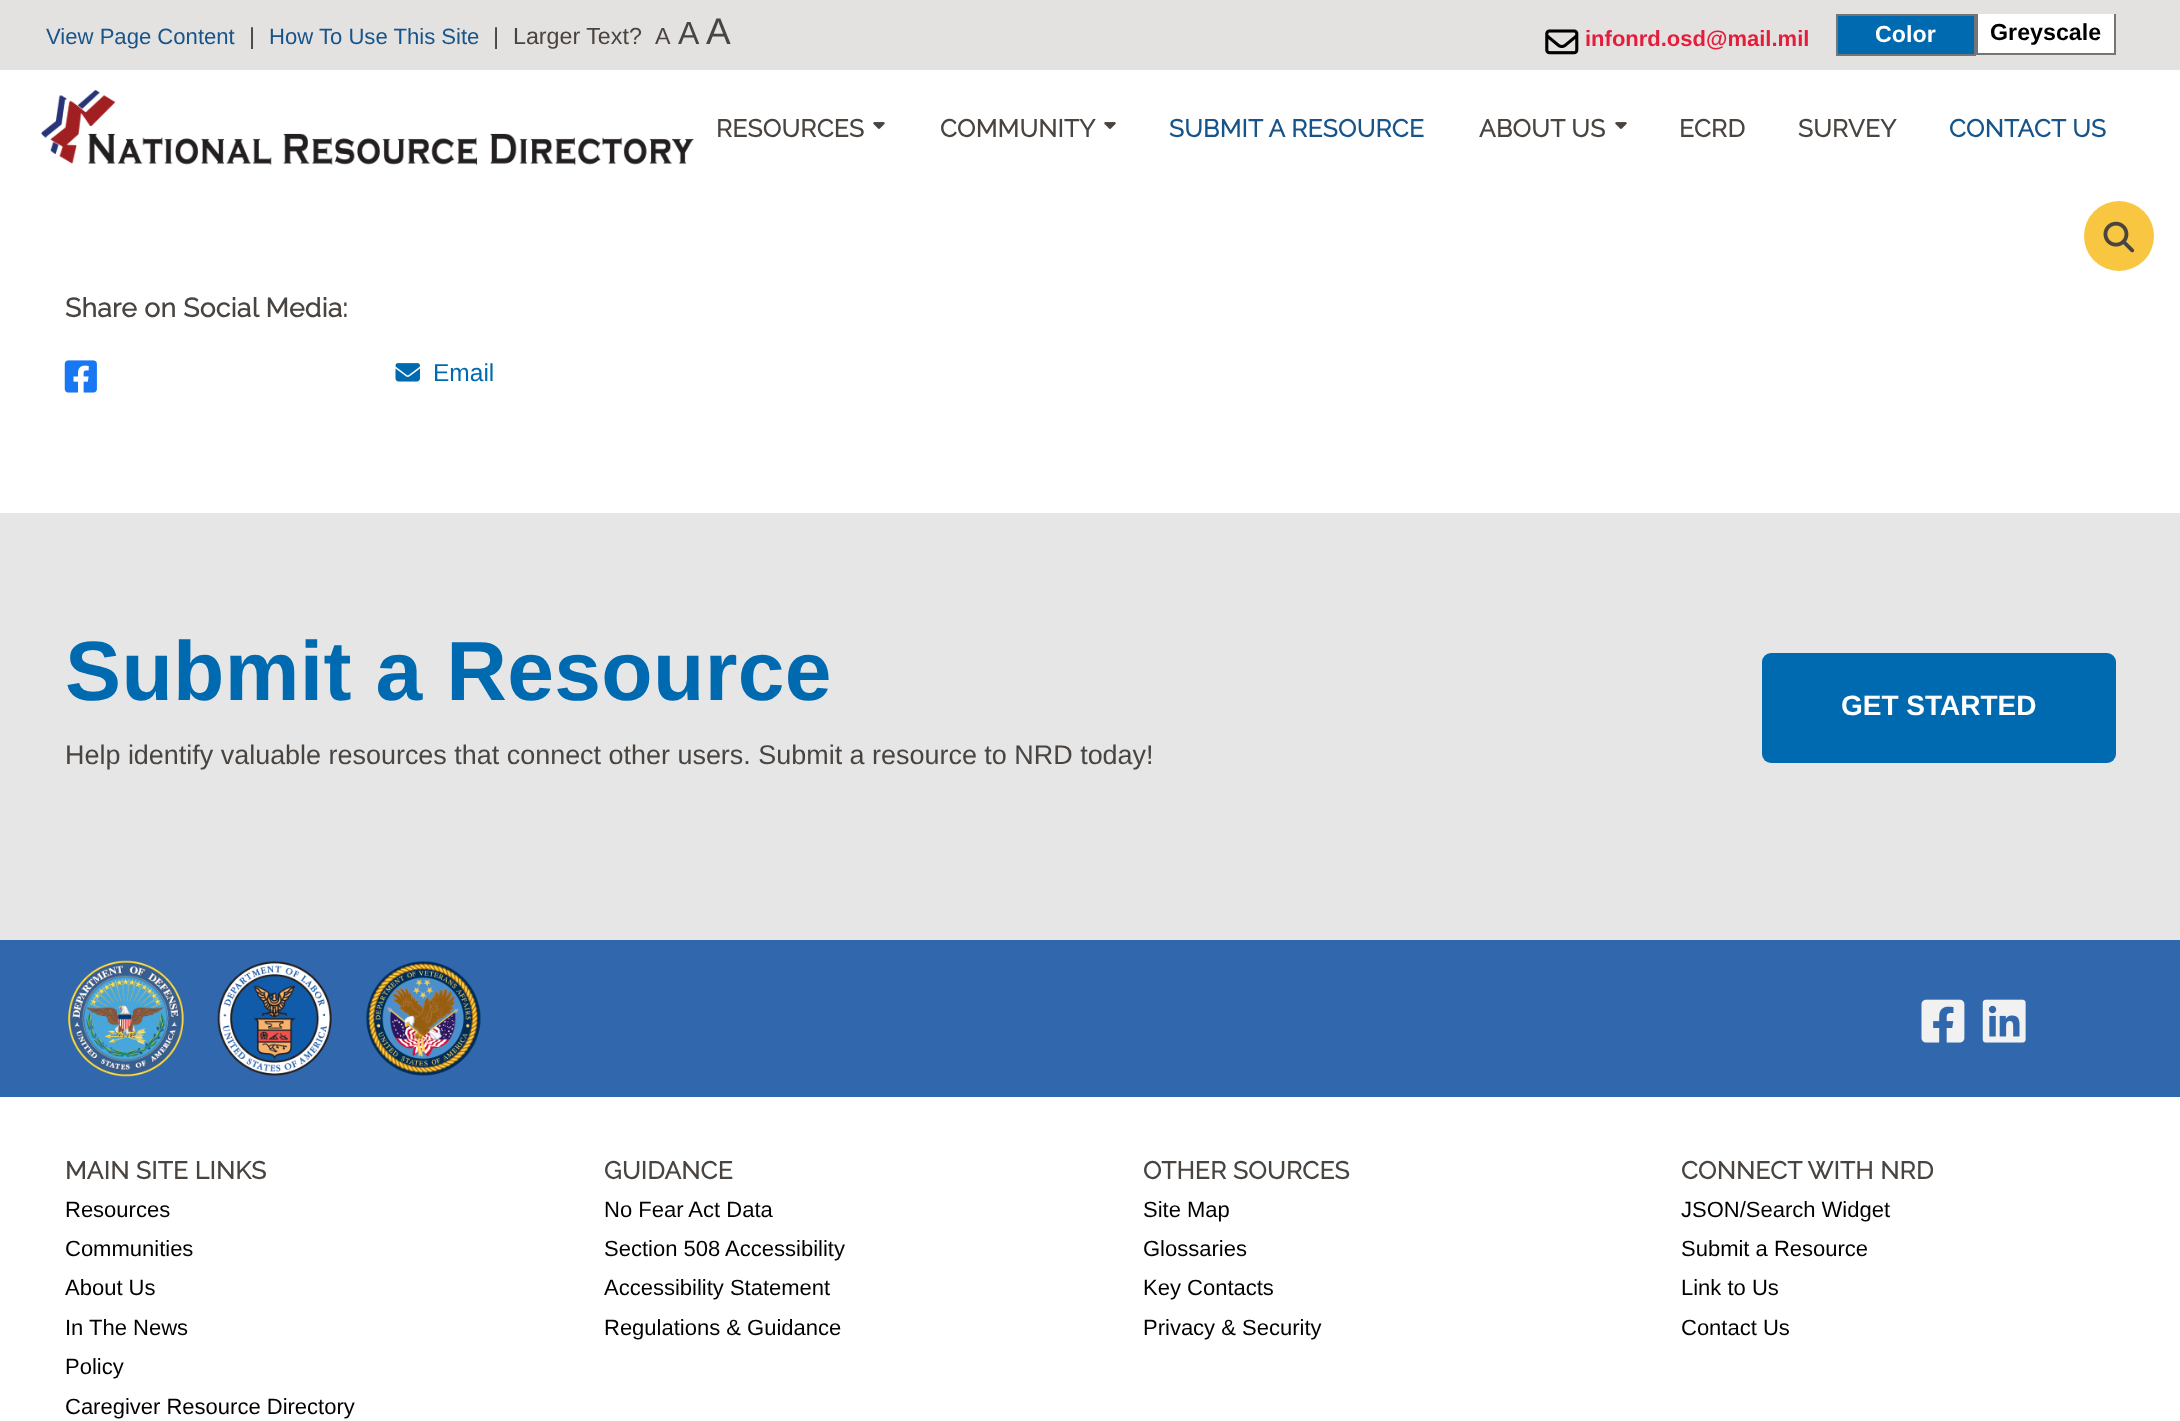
<svg xmlns="http://www.w3.org/2000/svg" width="2180" height="1421" viewBox="0 0 2180 1421">
  <rect width="100%" height="100%" fill="rgb(255,255,255)"/>
  <rect x="0" y="0" width="2180" height="70" fill="rgb(228,226,224)"/>
  <text x="46" y="44" font-family="Liberation Sans" font-size="22.1" fill="rgb(23,84,137)">View Page Content</text>
  <text x="249" y="44" font-family="Liberation Sans" font-size="23.25" fill="rgb(73,68,64)">|</text>
  <text x="269" y="44" font-family="Liberation Sans" font-size="22.1" fill="rgb(23,84,137)">How To Use This Site</text>
  <g font-family="Liberation Sans" font-size="23.25" fill="rgb(73,68,64)">
    <text x="493" y="44">|</text>
    <text x="513" y="44">Larger Text?</text>
    <text x="655" y="44">A</text>
  </g>
  <text x="678" y="44" font-family="Liberation Sans" font-size="32" fill="rgb(73,68,64)">A</text>
  <text x="706" y="44" font-family="Liberation Sans" font-size="37" fill="rgb(73,68,64)">A</text>
  <image x="1545" y="29" width="34" height="26" href="pic1.png"/>
  <text x="1585" y="46" font-family="Liberation Sans" font-size="22" font-weight="bold" fill="rgb(228,29,61)">infonrd.osd@mail.mil</text>
  <rect x="1837" y="15" width="138" height="40" fill="rgb(0,106,176)" stroke="rgb(117,117,117)" stroke-width="2"/>
  <text x="1875" y="42" font-family="Liberation Sans" font-size="23.25" font-weight="bold" fill="rgb(255,255,255)">Color</text>
  <rect x="1978" y="14" width="136" height="39" fill="rgb(255,255,255)"/>
  <rect x="2114" y="14" width="2" height="40" fill="rgb(117,117,117)"/>
  <rect x="1976" y="53" width="140" height="2" fill="rgb(117,117,117)"/>
  <rect x="1976" y="14" width="2" height="40" fill="rgb(117,117,117)"/>
  <text x="1990" y="40" font-family="Liberation Sans" font-size="23.25" font-weight="bold" fill="rgb(0,0,0)">Greyscale</text>
  <image x="41" y="90" width="653" height="76" href="pic2.png"/>
  <text x="716" y="137" font-family="Raleway" font-size="24.5" font-weight="bold" letter-spacing="0.35" fill="rgb(73,68,64)">RESOURCES</text>
  <image x="873" y="122" width="12" height="7" href="pic3.png"/>
  <text x="940" y="137" font-family="Raleway" font-size="24.5" font-weight="bold" letter-spacing="0.35" fill="rgb(73,68,64)">COMMUNITY</text>
  <image x="1104" y="122" width="12" height="7" href="pic3.png"/>
  <text x="1169" y="137" font-family="Raleway" font-size="24.5" font-weight="bold" letter-spacing="0.35" fill="rgb(23,84,137)">SUBMIT A RESOURCE</text>
  <text x="1479" y="137" font-family="Raleway" font-size="24.5" font-weight="bold" letter-spacing="0.35" fill="rgb(73,68,64)">ABOUT US</text>
  <image x="1615" y="122" width="12" height="7" href="pic3.png"/>
  <g font-family="Raleway" font-size="24.5" font-weight="bold" letter-spacing="0.35" fill="rgb(73,68,64)">
    <text x="1679" y="137">ECRD</text>
    <text x="1798" y="137">SURVEY</text>
  </g>
  <text x="1949" y="137" font-family="Raleway" font-size="24.5" font-weight="bold" letter-spacing="0.35" fill="rgb(23,84,137)">CONTACT US</text>
  <circle cx="2119" cy="236" r="35" fill="rgb(249,198,66)"/>
  <image x="2103" y="221" width="32" height="32" href="pic4.png"/>
  <text x="65" y="317" font-family="Raleway" font-size="26.5" font-weight="bold" letter-spacing="0.35" fill="rgb(73,68,64)">Share on Social Media:</text>
  <image x="64" y="360" width="33" height="33" href="pic5.png"/>
  <image x="395" y="363" width="25" height="19" href="pic6.png"/>
  <text x="433" y="381" font-family="Liberation Sans" font-size="24.5" fill="rgb(0,106,176)">Email</text>
  <rect x="0" y="513" width="2180" height="427" fill="rgb(230,230,230)"/>
  <text x="65" y="700" font-family="Liberation Sans" font-size="84" font-weight="bold" letter-spacing="0.35" fill="rgb(0,106,176)">Submit a Resource</text>
  <text x="65" y="764" font-family="Liberation Sans" font-size="26.95" fill="rgb(73,68,64)">Help identify valuable resources that connect other users. Submit a resource to NRD today!</text>
  <rect x="1762" y="653" width="354" height="110" rx="9" fill="rgb(0,106,176)"/>
  <text x="1841" y="715" font-family="Liberation Sans" font-size="28" font-weight="bold" fill="rgb(255,255,255)">GET STARTED</text>
  <rect x="0" y="940" width="2180" height="157" fill="rgb(49,103,172)"/>
  <image x="68" y="960" width="116" height="117" href="pic7.png"/>
  <image x="217" y="961" width="115" height="115" href="pic8.png"/>
  <image x="366" y="961" width="115" height="115" href="pic9.png"/>
  <image x="1921" y="999" width="44" height="44" href="pic10.png"/>
  <image x="1982" y="999" width="44" height="44" href="pic11.png"/>
  <text x="65" y="1179" font-family="Raleway" font-size="24.5" font-weight="bold" letter-spacing="0.35" fill="rgb(73,68,64)">MAIN SITE LINKS</text>
  <g font-family="Liberation Sans" font-size="22" fill="rgb(0,0,0)">
    <text>
      <tspan x="65" y="1217">Resources</tspan>
      <tspan x="65" y="1256">Communities</tspan>
      <tspan x="65" y="1295">About Us</tspan>
      <tspan x="65" y="1335">In The News</tspan>
      <tspan x="65" y="1374">Policy</tspan>
      <tspan x="65" y="1414">Caregiver Resource Directory</tspan>
    </text>
  </g>
  <text x="604" y="1179" font-family="Raleway" font-size="24.5" font-weight="bold" letter-spacing="0.35" fill="rgb(73,68,64)">GUIDANCE</text>
  <g font-family="Liberation Sans" font-size="22" fill="rgb(0,0,0)">
    <text>
      <tspan x="604" y="1217">No Fear Act Data</tspan>
      <tspan x="604" y="1256">Section 508 Accessibility</tspan>
      <tspan x="604" y="1295">Accessibility Statement</tspan>
      <tspan x="604" y="1335">Regulations &amp; Guidance</tspan>
    </text>
  </g>
  <text x="1143" y="1179" font-family="Raleway" font-size="24.5" font-weight="bold" letter-spacing="0.35" fill="rgb(73,68,64)">OTHER SOURCES</text>
  <g font-family="Liberation Sans" font-size="22" fill="rgb(0,0,0)">
    <text>
      <tspan x="1143" y="1217">Site Map</tspan>
      <tspan x="1143" y="1256">Glossaries</tspan>
      <tspan x="1143" y="1295">Key Contacts</tspan>
      <tspan x="1143" y="1335">Privacy &amp; Security</tspan>
    </text>
  </g>
  <text x="1681" y="1179" font-family="Raleway" font-size="24.5" font-weight="bold" letter-spacing="0.35" fill="rgb(73,68,64)">CONNECT WITH NRD</text>
  <g font-family="Liberation Sans" font-size="22" fill="rgb(0,0,0)">
    <text>
      <tspan x="1681" y="1217">JSON/Search Widget</tspan>
      <tspan x="1681" y="1256">Submit a Resource</tspan>
      <tspan x="1681" y="1295">Link to Us</tspan>
      <tspan x="1681" y="1335">Contact Us</tspan>
    </text>
  </g>
</svg>
